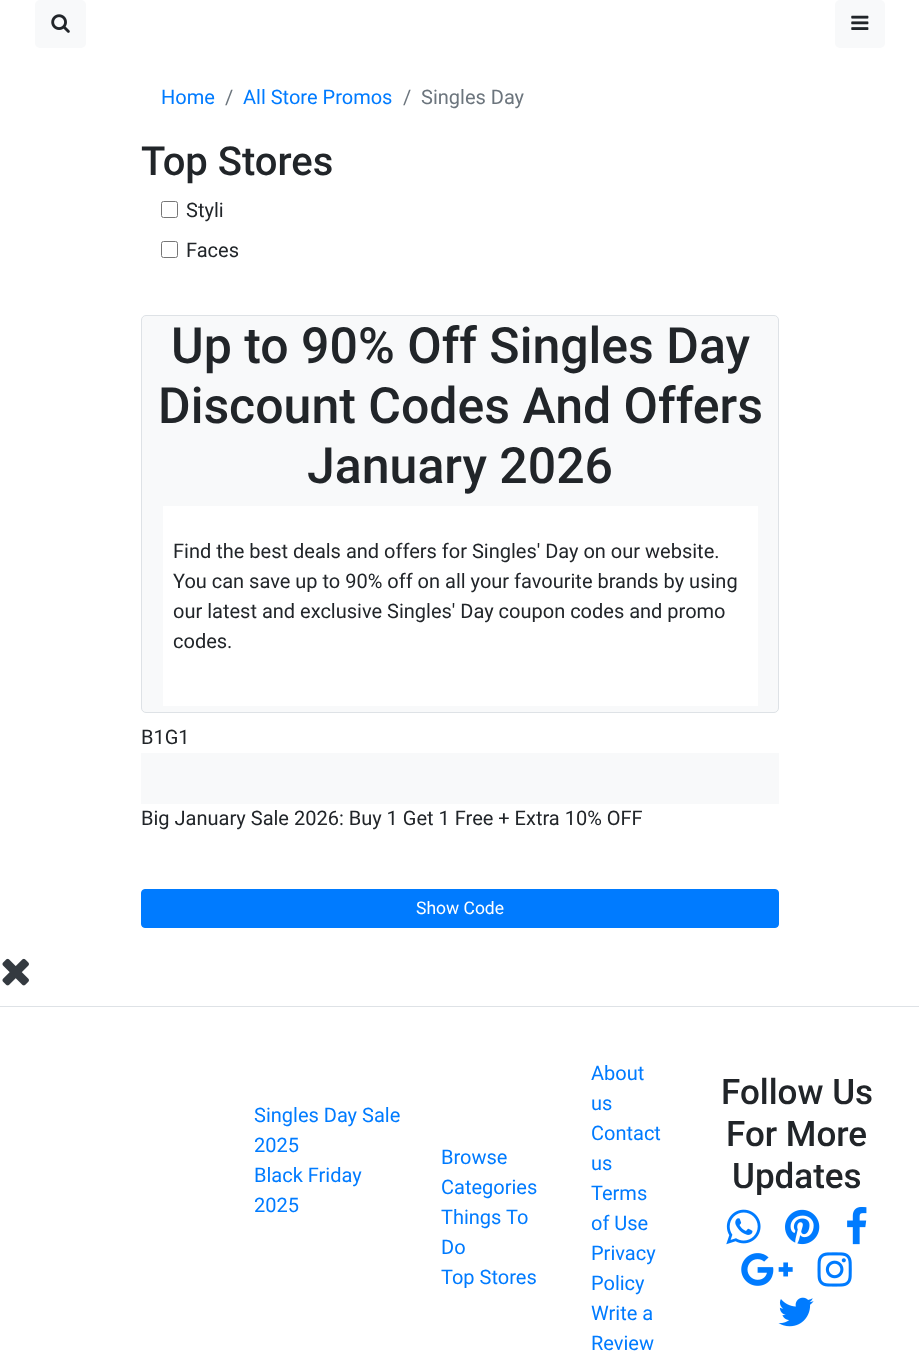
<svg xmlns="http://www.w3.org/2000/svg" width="919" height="1370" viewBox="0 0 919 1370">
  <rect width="100%" height="100%" fill="rgb(255,255,255)"/>
  <rect x="35" y="0" width="51" height="48" rx="5" fill="rgb(248,249,250)"/>
  <image x="51" y="14" width="19" height="19" href="pic1.png"/>
  <rect x="835" y="0" width="50" height="48" rx="5" fill="rgb(248,249,250)"/>
  <image x="851" y="15" width="18" height="15" href="pic2.png"/>
  <text x="161" y="104" font-family="Roboto" font-size="20" fill="rgb(0,123,255)">Home</text>
  <text x="225" y="104" font-family="Roboto" font-size="20" fill="rgb(108,117,125)">/</text>
  <text x="243" y="104" font-family="Roboto" font-size="20" fill="rgb(0,123,255)">All Store Promos</text>
  <g font-family="Roboto" font-size="20" fill="rgb(108,117,125)">
    <text x="403" y="104">/</text>
    <text x="421" y="104">Singles Day</text>
  </g>
  <text x="141" y="175" font-family="Roboto" font-size="40" font-weight="500" fill="rgb(33,37,41)">Top Stores</text>
  <rect x="161.5" y="201.5" width="16" height="16" rx="2" fill="none" stroke="rgb(118,118,118)"/>
  <text x="186" y="217" font-family="Roboto" font-size="20" fill="rgb(33,37,41)">Styli</text>
  <rect x="161.5" y="241.5" width="16" height="16" rx="2" fill="none" stroke="rgb(118,118,118)"/>
  <text x="186" y="257" font-family="Roboto" font-size="20" fill="rgb(33,37,41)">Faces</text>
  <rect x="141.5" y="315.5" width="637" height="397" rx="4.5" fill="rgb(248,249,250)" stroke="rgb(222,226,230)"/>
  <g font-family="Roboto" font-size="50" font-weight="500" fill="rgb(33,37,41)">
    <text x="171" y="363">Up to 90% Off Singles Day</text>
    <text x="158" y="423">Discount Codes And Offers</text>
    <text x="307" y="483">January 2026</text>
  </g>
  <rect x="163" y="506" width="595" height="200" fill="rgb(255,255,255)"/>
  <g font-family="Roboto" font-size="20" fill="rgb(33,37,41)">
    <text>
      <tspan x="173" y="558">Find the best deals and offers for Singles' Day on our website.</tspan>
      <tspan x="173" y="588">You can save up to 90% off on all your favourite brands by using</tspan>
      <tspan x="173" y="618">our latest and exclusive Singles' Day coupon codes and promo</tspan>
      <tspan x="173" y="648">codes.</tspan>
    </text>
    <text x="141" y="744">B1G1</text>
  </g>
  <rect x="141" y="753" width="638" height="51" fill="rgb(248,249,250)"/>
  <text x="141" y="825" font-family="Roboto" font-size="20" fill="rgb(33,37,41)">Big January Sale 2026: Buy 1 Get 1 Free + Extra 10% OFF</text>
  <rect x="141.5" y="889.5" width="637" height="38" rx="3.5" fill="rgb(0,123,255)" stroke="rgb(0,123,255)"/>
  <text x="416" y="914" font-family="Roboto" font-size="17.5" fill="rgb(255,255,255)">Show Code</text>
  <image x="2" y="958" width="27" height="28" href="pic3.png"/>
  <rect x="0" y="1006" width="919" height="1" fill="rgb(222,226,230)"/>
  <g font-family="Roboto" font-size="20" fill="rgb(0,123,255)">
    <text>
      <tspan x="254" y="1122">Singles Day Sale</tspan>
      <tspan x="254" y="1152">2025</tspan>
      <tspan x="254" y="1182">Black Friday</tspan>
      <tspan x="254" y="1212">2025</tspan>
    </text>
    <text>
      <tspan x="441" y="1164">Browse</tspan>
      <tspan x="441" y="1194">Categories</tspan>
      <tspan x="441" y="1224">Things To</tspan>
      <tspan x="441" y="1254">Do</tspan>
      <tspan x="441" y="1284">Top Stores</tspan>
    </text>
    <text>
      <tspan x="591" y="1080">About</tspan>
      <tspan x="591" y="1110">us</tspan>
      <tspan x="591" y="1140">Contact</tspan>
      <tspan x="591" y="1170">us</tspan>
      <tspan x="591" y="1200">Terms</tspan>
      <tspan x="591" y="1230">of Use</tspan>
      <tspan x="591" y="1260">Privacy</tspan>
      <tspan x="591" y="1290">Policy</tspan>
      <tspan x="591" y="1320">Write a</tspan>
      <tspan x="591" y="1350">Review</tspan>
    </text>
  </g>
  <g font-family="Roboto" font-size="35" font-weight="500" fill="rgb(33,37,41)">
    <text x="721" y="1104">Follow Us</text>
    <text x="726" y="1146">For More</text>
    <text x="732" y="1188">Updates</text>
  </g>
  <image x="726" y="1209" width="35" height="36" href="pic4.png"/>
  <image x="785" y="1209" width="35" height="36" href="pic5.png"/>
  <image x="847" y="1207" width="20" height="38" href="pic6.png"/>
  <image x="741" y="1253" width="52" height="33" href="pic7.png"/>
  <image x="817" y="1252" width="35" height="35" href="pic8.png"/>
  <image x="778" y="1297" width="36" height="30" href="pic9.png"/>
</svg>
